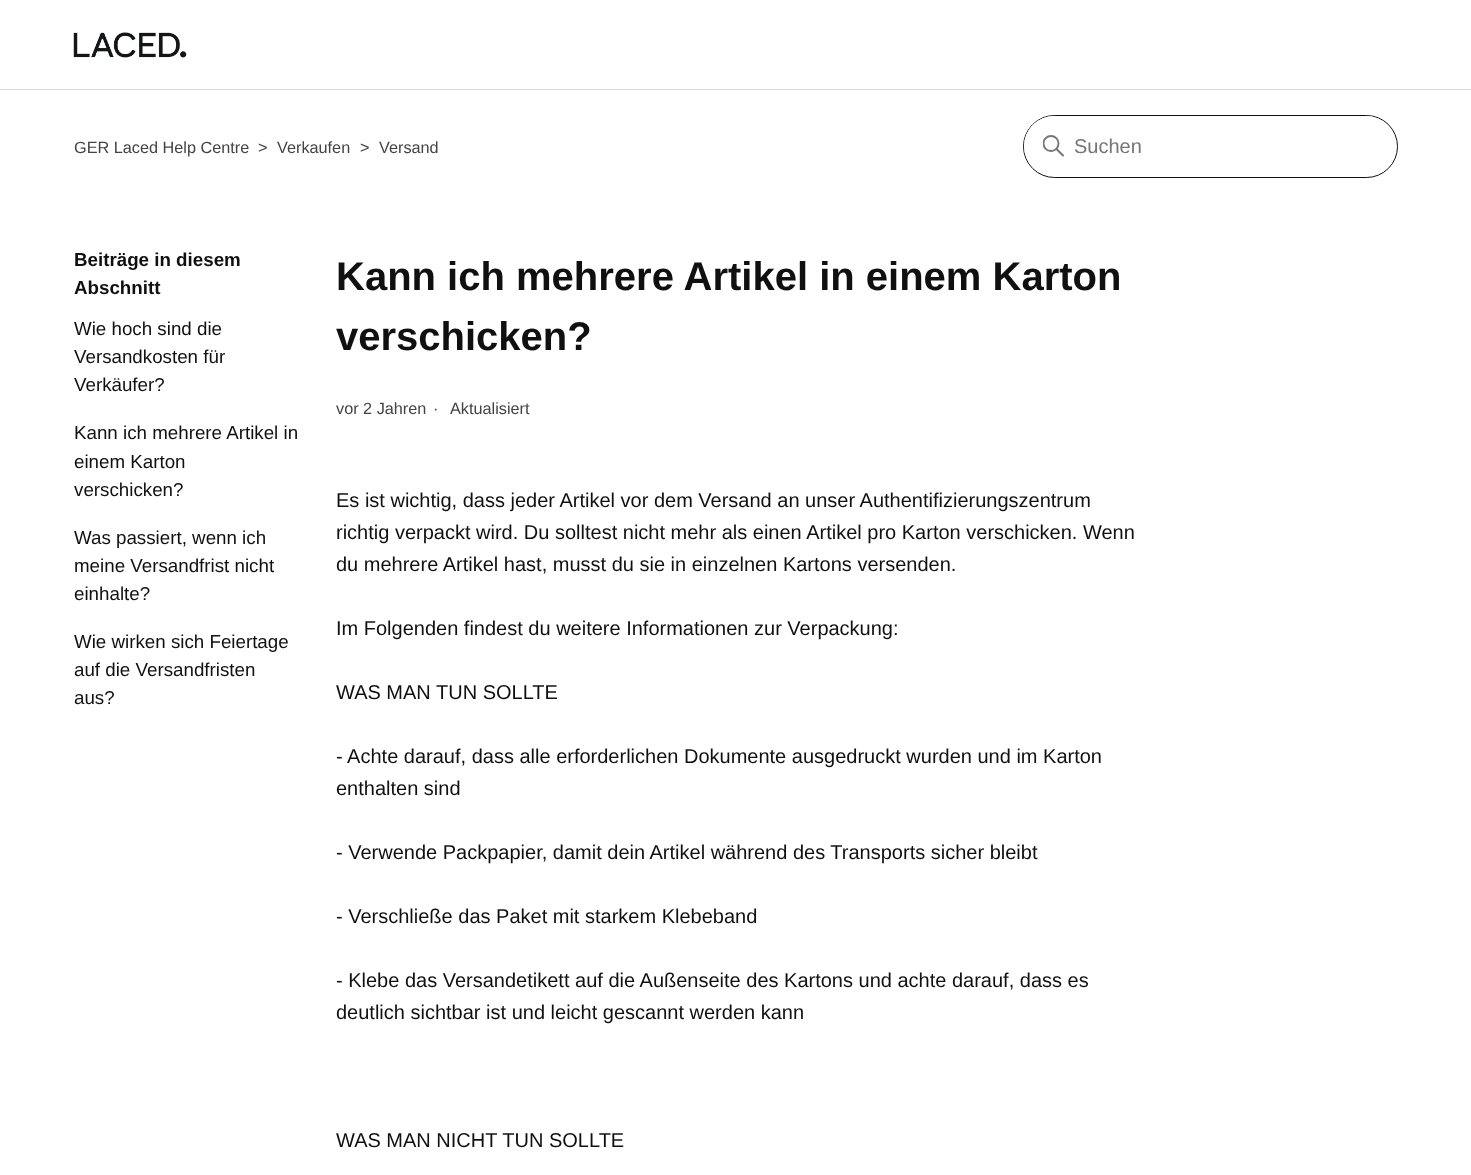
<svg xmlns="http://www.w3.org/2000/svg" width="1471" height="1175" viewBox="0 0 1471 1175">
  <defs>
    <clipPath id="clip1"><rect x="1043" y="135" width="22" height="23"/></clipPath>
  </defs>
  <rect width="100%" height="100%" fill="rgb(255,255,255)"/>
  <image x="73" y="32" width="114" height="26" href="pic1.png"/>
  <rect x="0" y="89" width="1471" height="1" fill="rgb(221,221,221)"/>
  <g font-family="Liberation Sans" font-size="16.25" fill="rgb(67,67,67)">
    <text x="74" y="153">GER Laced Help Centre</text>
    <text x="258" y="153">&gt;</text>
    <text x="277" y="153">Verkaufen</text>
    <text x="360" y="153">&gt;</text>
    <text x="379" y="153">Versand</text>
  </g>
  <rect x="1023.5" y="115.5" width="374" height="62" rx="31" fill="none" stroke="rgb(16,16,16)"/>
  <rect x="1024" y="116" width="372" height="60" rx="30" fill="rgb(255,255,255)"/>
  <g clip-path="url(#clip1)">
    <circle cx="1051" cy="143.5" r="7.5" fill="none" stroke="rgb(118,118,118)" stroke-width="1.9"/>
  </g>
  <path d="M1063 155.5L1056.5 149" fill="none" stroke="rgb(118,118,118)" stroke-width="1.9" stroke-linecap="round"/>
  <text x="1074" y="153" font-family="Liberation Sans" font-size="20" fill="rgb(117,117,117)">Suchen</text>
  <g font-family="Liberation Sans" font-size="18.75" font-weight="bold" fill="rgb(16,16,16)">
    <text>
      <tspan x="74" y="266">Beiträge in diesem</tspan>
      <tspan x="74" y="294">Abschnitt</tspan>
    </text>
  </g>
  <g font-family="Liberation Sans" font-size="18.75" fill="rgb(16,16,16)">
    <text>
      <tspan x="74" y="335">Wie hoch sind die</tspan>
      <tspan x="74" y="363">Versandkosten für</tspan>
      <tspan x="74" y="391">Verkäufer?</tspan>
    </text>
    <text>
      <tspan x="74" y="439">Kann ich mehrere Artikel in</tspan>
      <tspan x="74" y="468">einem Karton</tspan>
      <tspan x="74" y="496">verschicken?</tspan>
    </text>
    <text>
      <tspan x="74" y="544">Was passiert, wenn ich</tspan>
      <tspan x="74" y="572">meine Versandfrist nicht</tspan>
      <tspan x="74" y="600">einhalte?</tspan>
    </text>
    <text>
      <tspan x="74" y="648">Wie wirken sich Feiertage</tspan>
      <tspan x="74" y="676">auf die Versandfristen</tspan>
      <tspan x="74" y="704">aus?</tspan>
    </text>
  </g>
  <g font-family="Liberation Sans" font-size="40" font-weight="bold" fill="rgb(16,16,16)">
    <text>
      <tspan x="336" y="290">Kann ich mehrere Artikel in einem Karton</tspan>
      <tspan x="336" y="350">verschicken?</tspan>
    </text>
  </g>
  <g font-family="Liberation Sans" font-size="16.25" fill="rgb(67,67,67)">
    <text x="336" y="414">vor 2 Jahren</text>
    <text x="433" y="414">·</text>
    <text x="450" y="414">Aktualisiert</text>
  </g>
  <g font-family="Liberation Sans" font-size="20" fill="rgb(16,16,16)">
    <text>
      <tspan x="336" y="507">Es ist wichtig, dass jeder Artikel vor dem Versand an unser Authentifizierungszentrum</tspan>
      <tspan x="336" y="539">richtig verpackt wird. Du solltest nicht mehr als einen Artikel pro Karton verschicken. Wenn</tspan>
      <tspan x="336" y="571">du mehrere Artikel hast, musst du sie in einzelnen Kartons versenden.</tspan>
    </text>
    <text x="336" y="635">Im Folgenden findest du weitere Informationen zur Verpackung:</text>
    <text x="336" y="699">WAS MAN TUN SOLLTE</text>
    <text>
      <tspan x="336" y="763">- Achte darauf, dass alle erforderlichen Dokumente ausgedruckt wurden und im Karton</tspan>
      <tspan x="336" y="795">enthalten sind</tspan>
    </text>
    <text x="336" y="859">- Verwende Packpapier, damit dein Artikel während des Transports sicher bleibt</text>
    <text x="336" y="923">- Verschließe das Paket mit starkem Klebeband</text>
    <text>
      <tspan x="336" y="987">- Klebe das Versandetikett auf die Außenseite des Kartons und achte darauf, dass es</tspan>
      <tspan x="336" y="1019">deutlich sichtbar ist und leicht gescannt werden kann</tspan>
    </text>
    <text x="336" y="1147">WAS MAN NICHT TUN SOLLTE</text>
  </g>
</svg>
